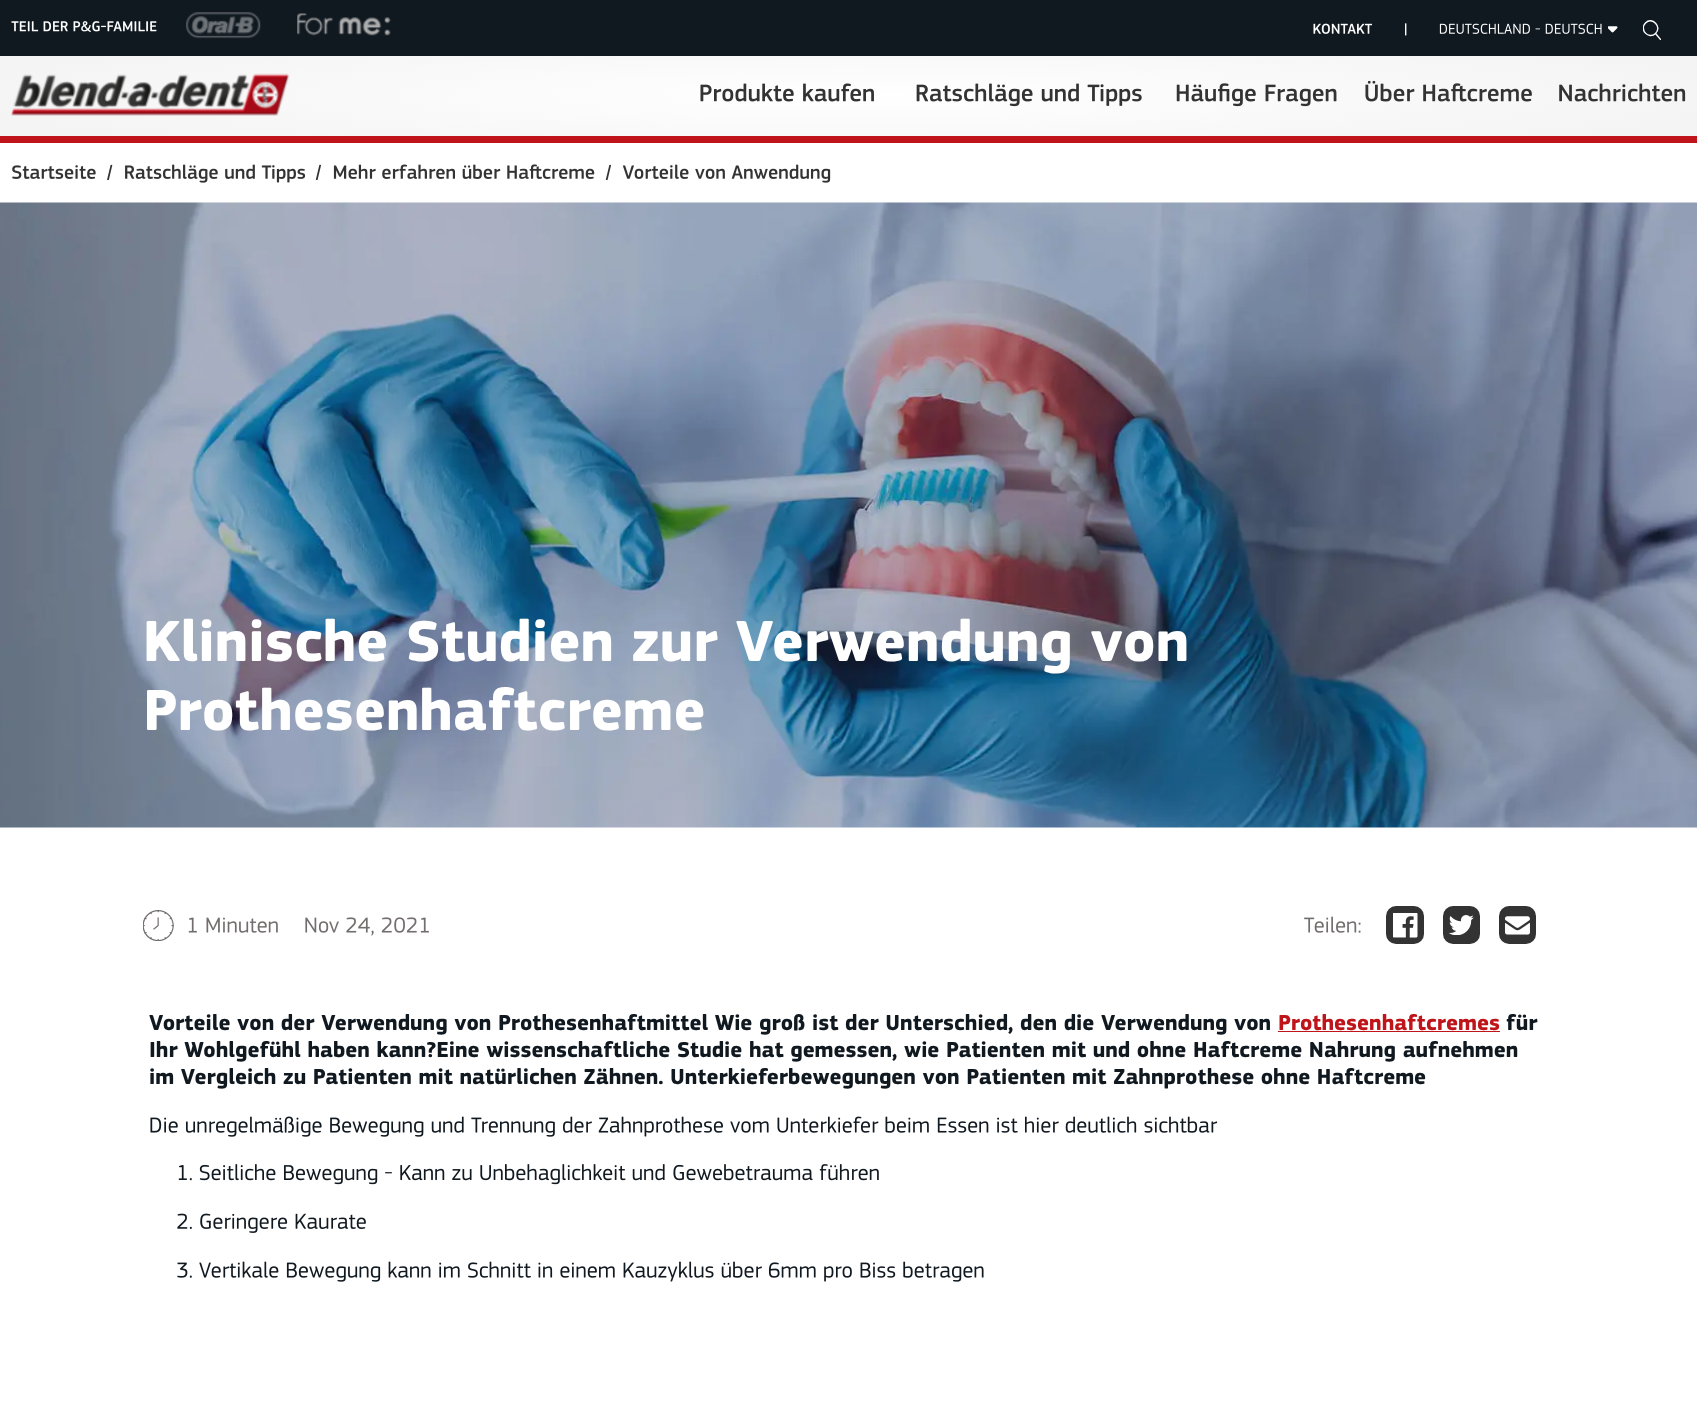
<svg xmlns="http://www.w3.org/2000/svg" width="1697" height="1411" viewBox="0 0 1697 1411">
  <defs>
    <clipPath id="clip1"><rect x="1643" y="20" width="18" height="20"/></clipPath>
    <radialGradient id="g1" gradientUnits="userSpaceOnUse" cx="0" cy="0" r="1" gradientTransform="matrix(1916 0 0 154 849 96)"><stop offset="0" stop-color="rgb(255,255,255)"/><stop offset="1" stop-color="rgb(232,232,232)"/></radialGradient>
  </defs>
  <rect width="100%" height="100%" fill="rgb(255,255,255)"/>
  <rect x="0" y="136" width="1697" height="7" fill="rgb(192,20,27)"/>
  <rect x="0" y="0" width="1697" height="56" fill="rgb(16,24,32)"/>
  <image x="11" y="21" width="146" height="11" href="pic1.png"/>
  <image x="186" y="12" width="75" height="27" href="pic2.png"/>
  <image x="297" y="13" width="94" height="23" href="pic3.png"/>
  <image x="1313" y="23" width="59" height="11" href="pic4.png"/>
  <image x="1405" y="23" width="2" height="13" href="pic5.png"/>
  <image x="1439" y="23" width="163" height="11" href="pic6.png"/>
  <image x="1608" y="26" width="10" height="7" href="pic7.png"/>
  <g clip-path="url(#clip1)">
    <path d="M1655.5 33.5C1648.5 40 1639 29.5 1645.5 23C1652 16 1662.5 27 1655.5 33.5L1661 40Z" fill="none" stroke="rgb(255,255,255)" stroke-width="1.4"/>
  </g>
  <rect x="0" y="56" width="1697" height="80" fill="url(#g1)"/>
  <image x="11" y="73" width="279" height="43" href="pic8.png"/>
  <image x="700" y="83" width="174" height="19" href="pic9.png"/>
  <image x="916" y="83" width="226" height="24" href="pic10.png"/>
  <image x="1176" y="83" width="161" height="24" href="pic11.png"/>
  <image x="1365" y="80" width="167" height="22" href="pic12.png"/>
  <image x="1559" y="83" width="127" height="19" href="pic13.png"/>
  <image x="12" y="165" width="84" height="14" href="pic14.png"/>
  <image x="107" y="164" width="6" height="16" href="pic15.png"/>
  <image x="125" y="164" width="181" height="19" href="pic16.png"/>
  <image x="315" y="164" width="6" height="16" href="pic17.png"/>
  <image x="333" y="164" width="262" height="15" href="pic18.png"/>
  <image x="605" y="164" width="6" height="16" href="pic17.png"/>
  <image x="622" y="164" width="209" height="19" href="pic19.png"/>
  <image x="0" y="202" width="1697" height="626" href="pic20.png"/>
  <g font-family="'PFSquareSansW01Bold'" font-size="60" font-weight="bold" fill="rgb(255,255,255)">
    <text>
      <tspan x="143" y="661">Klinische Studien zur Verwendung von</tspan>
      <tspan x="143" y="730">Prothesenhaftcreme</tspan>
    </text>
  </g>
  <image x="143" y="910" width="31" height="31" href="pic21.png"/>
  <image x="188" y="917" width="90" height="16" href="pic22.png"/>
  <image x="305" y="917" width="124" height="19" href="pic23.png"/>
  <image x="1304" y="916" width="57" height="17" href="pic24.png"/>
  <rect x="1386" y="906" width="38" height="38" rx="10" fill="rgb(51,51,51)"/>
  <image x="1393" y="913" width="25" height="25" href="pic25.png"/>
  <rect x="1443" y="906" width="37" height="38" rx="10" fill="rgb(51,51,51)"/>
  <image x="1449" y="915" width="25" height="20" href="pic26.png"/>
  <rect x="1499" y="906" width="37" height="38" rx="10" fill="rgb(51,51,51)"/>
  <image x="1505" y="916" width="25" height="19" href="pic27.png"/>
  <text x="149" y="1030" font-family="'PFSquareSansW01Bold'" font-size="22.5" font-weight="bold" fill="rgb(16,24,32)">Vorteile von der Verwendung von Prothesenhaftmittel Wie groß ist der Unterschied, den die Verwendung von</text>
  <text x="1278" y="1030" font-family="'PFSquareSansW01Bold'" font-size="22.5" font-weight="bold" fill="rgb(192,20,27)">Prothesenhaftcremes</text>
  <rect x="1278" y="1031" width="222" height="1" fill="rgb(192,20,27)"/>
  <g font-family="'PFSquareSansW01Bold'" font-size="22.5" font-weight="bold" fill="rgb(16,24,32)">
    <text x="1506" y="1030">für</text>
    <text>
      <tspan x="149" y="1057">Ihr Wohlgefühl haben kann?Eine wissenschaftliche Studie hat gemessen, wie Patienten mit und ohne Haftcreme Nahrung aufnehmen</tspan>
      <tspan x="149" y="1084">im Vergleich zu Patienten mit natürlichen Zähnen. Unterkieferbewegungen von Patienten mit Zahnprothese ohne Haftcreme</tspan>
    </text>
  </g>
  <image x="150" y="1116" width="1068" height="21" href="pic28.png"/>
  <image x="178" y="1165" width="14" height="16" href="pic29.png"/>
  <image x="199" y="1164" width="680" height="21" href="pic30.png"/>
  <image x="177" y="1213" width="15" height="16" href="pic31.png"/>
  <image x="200" y="1213" width="166" height="20" href="pic32.png"/>
  <image x="177" y="1262" width="15" height="16" href="pic33.png"/>
  <image x="199" y="1261" width="785" height="21" href="pic34.png"/>
</svg>
